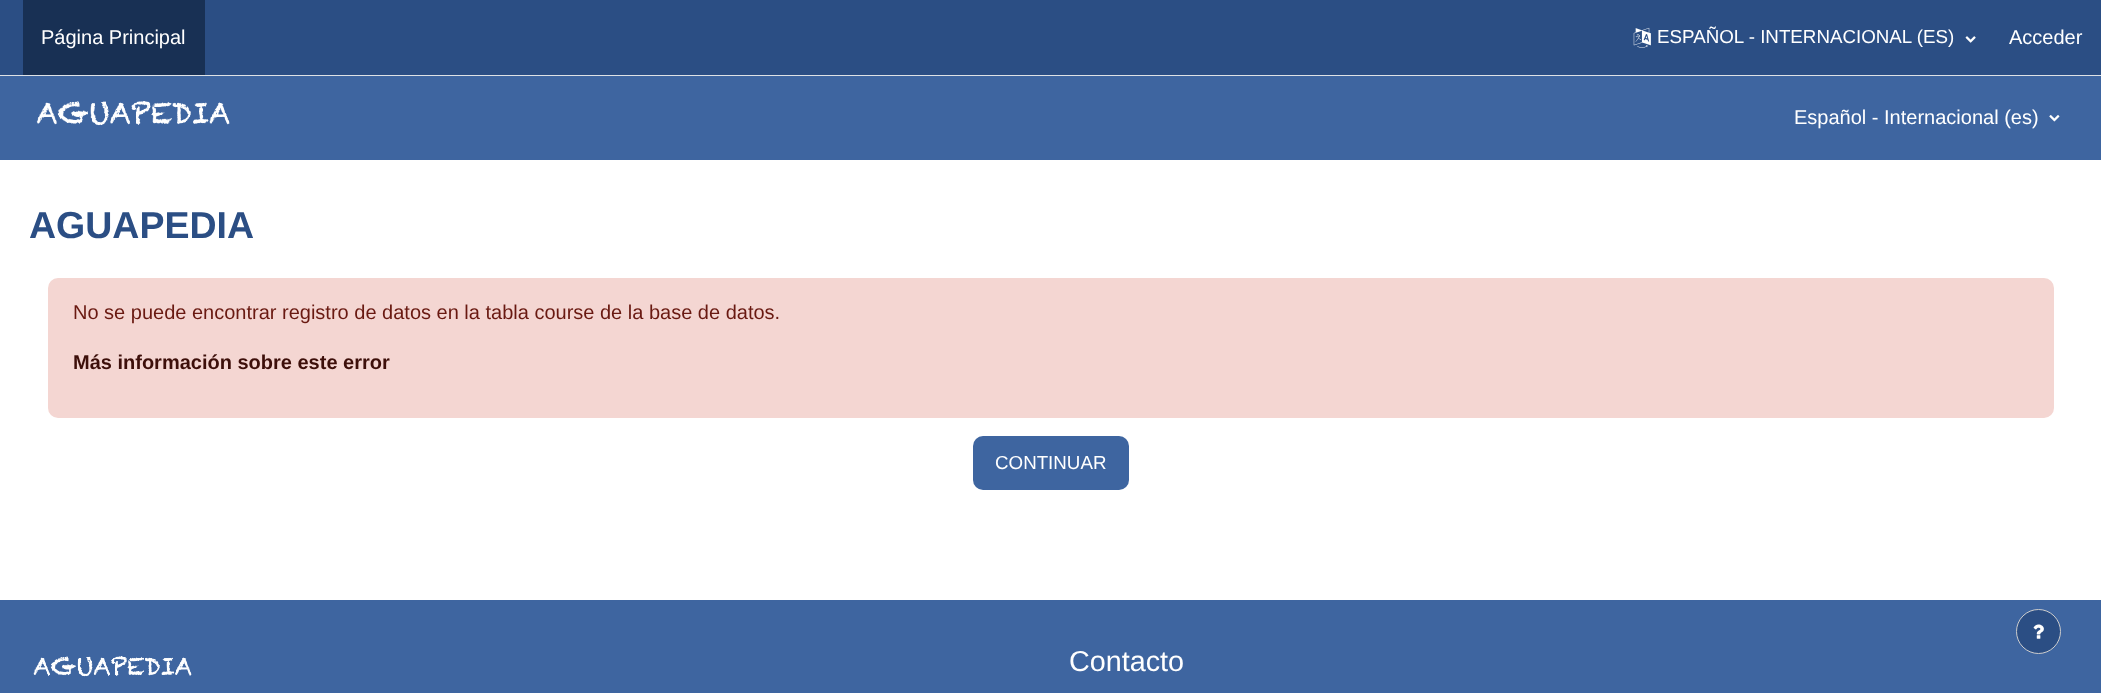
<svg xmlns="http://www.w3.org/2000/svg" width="2101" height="693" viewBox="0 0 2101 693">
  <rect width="100%" height="100%" fill="rgb(255,255,255)"/>
  <rect x="0" y="0" width="2101" height="75" fill="rgb(43,78,132)"/>
  <rect x="0" y="75" width="2101" height="1" fill="rgb(222,226,230)"/>
  <rect x="23" y="0" width="182" height="75" fill="rgb(24,48,84)"/>
  <text x="41" y="44" font-family="Liberation Sans" font-size="20" fill="rgb(255,255,255)">Página Principal</text>
  <image x="1633" y="27" width="18" height="21" href="pic1.png"/>
  <text x="1657" y="43" font-family="Liberation Sans" font-size="18.75" fill="rgb(255,255,255)">ESPAÑOL - INTERNACIONAL (ES)</text>
  <image x="1965" y="36" width="11" height="7" href="pic2.png"/>
  <text x="2009" y="44" font-family="Liberation Sans" font-size="20" fill="rgb(255,255,255)">Acceder</text>
  <rect x="0" y="76" width="2101" height="84" fill="rgb(62,101,160)"/>
  <image x="36" y="101" width="194" height="25" href="pic3.png"/>
  <text x="1794" y="124" font-family="Liberation Sans" font-size="20" fill="rgb(255,255,255)">Español - Internacional (es)</text>
  <image x="2049" y="115" width="11" height="7" href="pic4.png"/>
  <text x="29" y="238" font-family="Liberation Sans" font-size="37.5" font-weight="bold" fill="rgb(43,78,132)">AGUAPEDIA</text>
  <rect x="48" y="278" width="2006" height="140" rx="10" fill="rgb(244,214,210)"/>
  <text x="73" y="319" font-family="Liberation Sans" font-size="20" fill="rgb(105,25,17)">No se puede encontrar registro de datos en la tabla course de la base de datos.</text>
  <text x="73" y="369" font-family="Liberation Sans" font-size="20" font-weight="bold" fill="rgb(61,15,10)">Más información sobre este error</text>
  <rect x="973" y="436" width="156" height="54" rx="10" fill="rgb(62,101,160)"/>
  <text x="995" y="469" font-family="Liberation Sans" font-size="18.75" fill="rgb(255,255,255)">CONTINUAR</text>
  <rect x="0" y="600" width="2101" height="93" fill="rgb(62,101,160)"/>
  <circle cx="2038.5" cy="631.5" r="22" fill="rgb(43,78,132)" stroke="rgb(205,205,205)"/>
  <image x="2033" y="624" width="11" height="15" href="pic5.png"/>
  <image x="33" y="656" width="159" height="21" href="pic6.png"/>
  <text x="1069" y="671" font-family="Liberation Sans" font-size="28.75" fill="rgb(255,255,255)">Contacto</text>
</svg>
